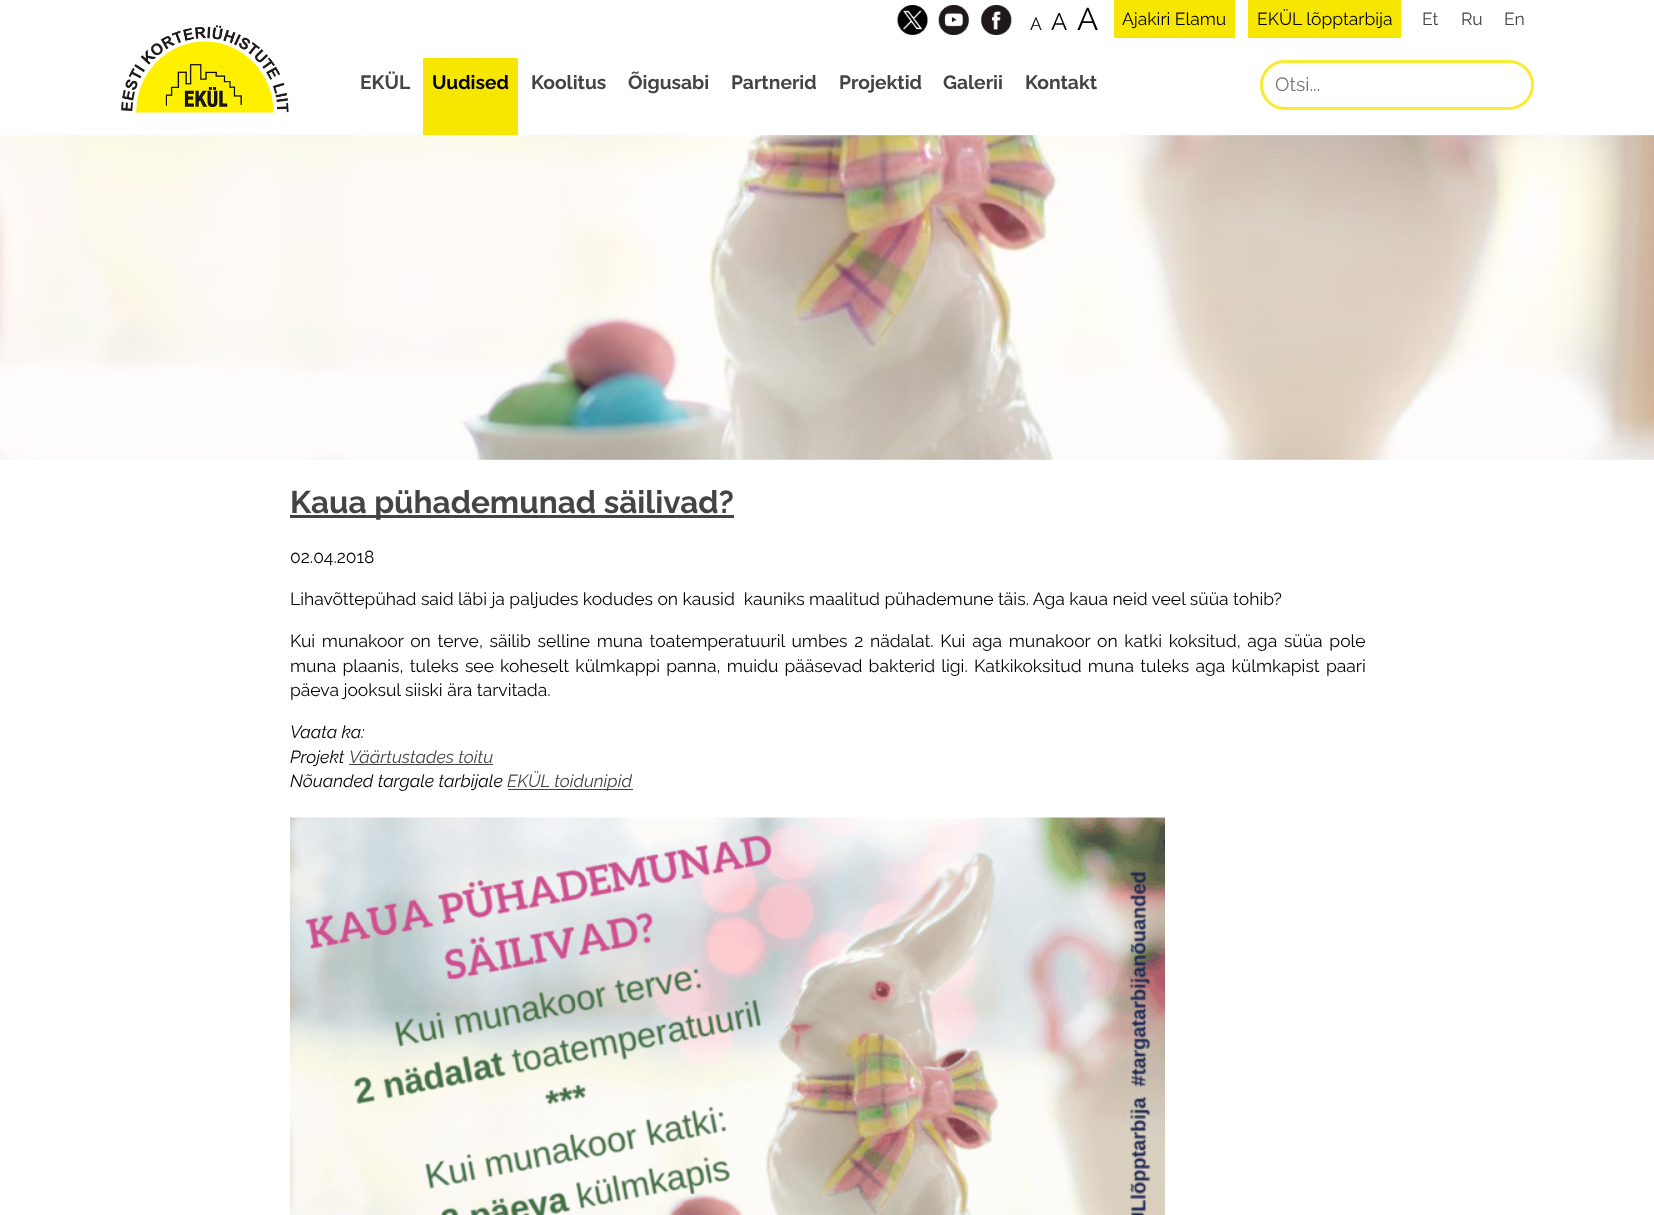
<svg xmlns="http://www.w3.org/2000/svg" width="1654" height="1215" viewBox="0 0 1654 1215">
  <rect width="100%" height="100%" fill="rgb(255,255,255)"/>
  <image x="897" y="5" width="31" height="30" href="pic1.png"/>
  <image x="938" y="5" width="31" height="30" href="pic2.png"/>
  <image x="981" y="5" width="31" height="30" href="pic3.png"/>
  <text x="1030" y="30" font-family="Raleway" font-size="17.5" fill="rgb(0,0,0)">A</text>
  <text x="1051" y="30" font-family="Raleway" font-size="24" fill="rgb(0,0,0)">A</text>
  <text x="1077" y="30" font-family="Raleway" font-size="31.5" fill="rgb(0,0,0)">A</text>
  <rect x="1114" y="0" width="121" height="38" fill="rgb(247,230,0)"/>
  <text x="1122" y="25" font-family="Raleway" font-size="17.5" fill="rgb(0,0,0)">Ajakiri Elamu</text>
  <rect x="1248" y="0" width="153" height="38" fill="rgb(247,230,0)"/>
  <text x="1257" y="25" font-family="Raleway" font-size="17.5" fill="rgb(0,0,0)">EKÜL lõpptarbija</text>
  <g font-family="Raleway" font-size="17.5" fill="rgb(68,68,68)">
    <text x="1422" y="25">Et</text>
    <text x="1461" y="25">Ru</text>
    <text x="1504" y="25">En</text>
  </g>
  <image x="121" y="25" width="168" height="88" href="pic4.png"/>
  <text x="360" y="89" font-family="Raleway" font-size="19.25" font-weight="bold" fill="rgb(68,68,68)">EKÜL</text>
  <rect x="423" y="58" width="95" height="77" fill="rgb(247,230,0)"/>
  <text x="432" y="89" font-family="Raleway" font-size="19.25" font-weight="bold" fill="rgb(0,0,0)">Uudised</text>
  <g font-family="Raleway" font-size="19.25" font-weight="bold" fill="rgb(68,68,68)">
    <text x="531" y="89">Koolitus</text>
    <text x="628" y="89">Õigusabi</text>
    <text x="731" y="89">Partnerid</text>
    <text x="839" y="89">Projektid</text>
    <text x="943" y="89">Galerii</text>
    <text x="1025" y="89">Kontakt</text>
  </g>
  <rect x="1261.5" y="61.5" width="271" height="47" rx="23.5" fill="none" stroke="rgb(249,235,51)" stroke-width="3"/>
  <text x="1275" y="91" font-family="Raleway" font-size="19.25" fill="rgb(117,117,117)">Otsi...</text>
  <image x="0" y="135" width="1654" height="325" href="pic5.png"/>
  <rect x="290" y="515" width="444" height="3" fill="rgb(68,68,68)"/>
  <text x="290" y="513" font-family="Raleway" font-size="31.5" font-weight="bold" fill="rgb(68,68,68)">Kaua pühademunad säilivad?</text>
  <g font-family="Raleway" font-size="17.5" fill="rgb(0,0,0)">
    <text x="290" y="563">02.04.2018</text>
    <text x="290" y="605" xml:space="preserve">Lihavõttepühad said läbi ja paljudes kodudes on kausid  kauniks maalitud pühademune täis. Aga kaua neid veel süüa tohib?</text>
    <text>
      <tspan x="290" y="647" word-spacing="2.25">Kui munakoor on terve, säilib selline muna toatemperatuuril umbes 2 nädalat. Kui aga munakoor on katki koksitud, aga süüa pole</tspan>
      <tspan x="290" y="672" word-spacing="1.75">muna plaanis, tuleks see koheselt külmkappi panna, muidu pääsevad bakterid ligi. Katkikoksitud muna tuleks aga külmkapist paari</tspan>
      <tspan x="290" y="696">päeva jooksul siiski ära tarvitada.</tspan>
    </text>
  </g>
  <g font-family="Raleway" font-size="17.5" font-style="italic" fill="rgb(0,0,0)">
    <text>
      <tspan x="290" y="738">Vaata ka:</tspan>
      <tspan x="290" y="763">Projekt</tspan>
    </text>
  </g>
  <text x="349" y="763" font-family="Raleway" font-size="17.5" font-style="italic" fill="rgb(68,68,68)">Väärtustades toitu</text>
  <rect x="349" y="764" width="144" height="1" fill="rgb(68,68,68)"/>
  <text x="290" y="787" font-family="Raleway" font-size="17.5" font-style="italic" fill="rgb(0,0,0)">Nõuanded targale tarbijale</text>
  <rect x="508" y="789" width="125" height="1" fill="rgb(68,68,68)"/>
  <text x="507" y="787" font-family="Raleway" font-size="17.5" font-style="italic" fill="rgb(68,68,68)">EKÜL toidunipid</text>
  <image x="290" y="817" width="875" height="398" href="pic6.png"/>
</svg>
